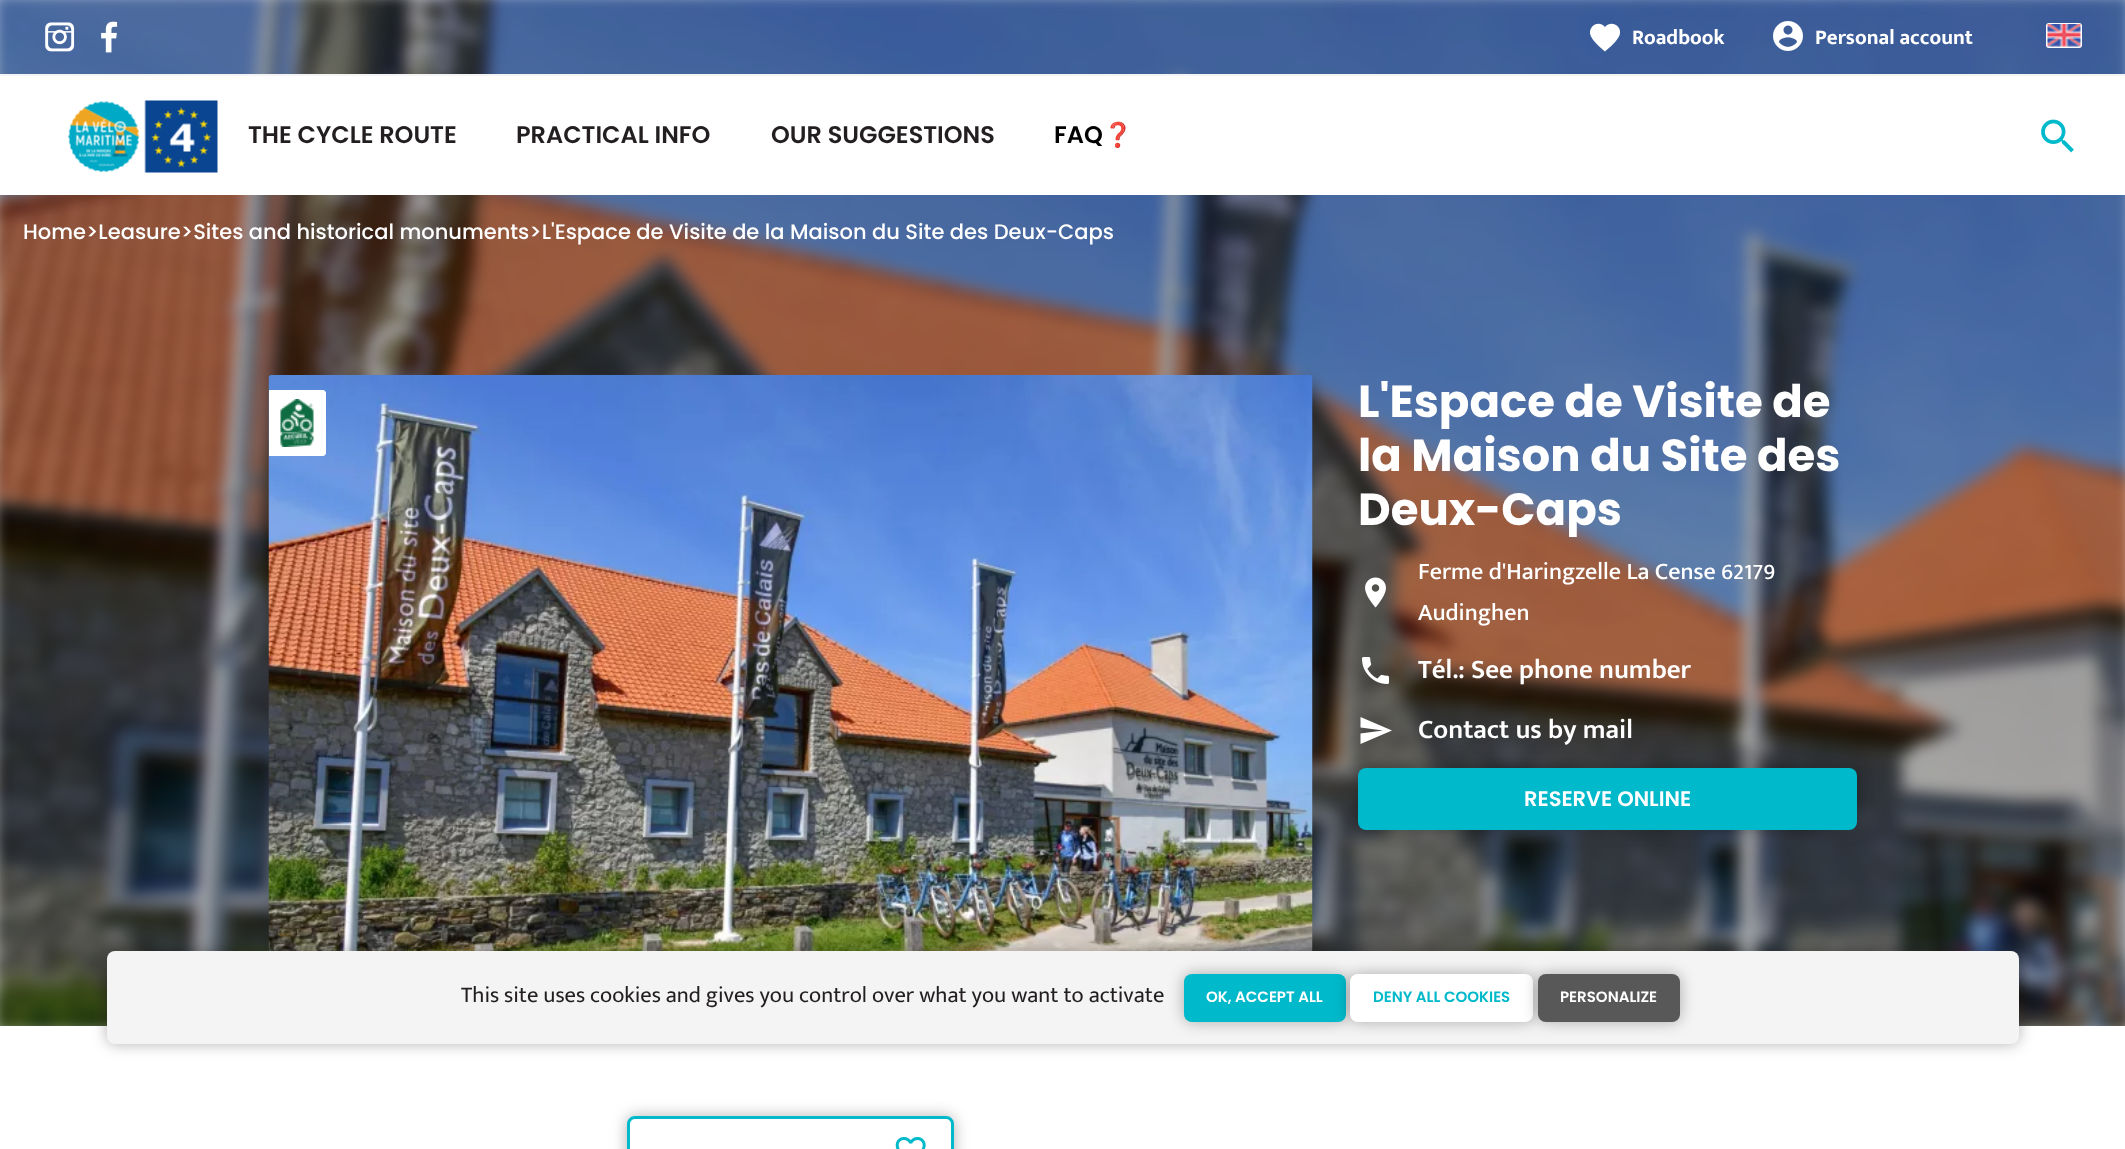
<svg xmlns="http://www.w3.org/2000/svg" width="2125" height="1149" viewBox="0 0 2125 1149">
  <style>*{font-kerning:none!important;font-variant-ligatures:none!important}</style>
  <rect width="100%" height="100%" fill="rgb(255,255,255)"/>
  <image x="0" y="0" width="2125" height="1026" href="pic7.png"/>
  <rect x="0" y="74" width="2125" height="2" fill="rgb(244,244,244)"/>
  <image x="45" y="22" width="30" height="30" href="pic1.png"/>
  <image x="101" y="21" width="17" height="32" href="pic2.png"/>
  <path d="M1605 51.5C1600.5 47.5 1593.5 42 1591 36.5C1586.5 27.5 1598 19 1605 27C1611.5 19.5 1623 26.5 1619.5 35.5C1616.5 42 1610 47 1605 51.5Z" fill="rgb(255,255,255)"/>
  <text x="1632" y="44" font-family="Mukta Mahee" font-size="21" font-weight="bold" fill="rgb(255,255,255)">Roadbook</text>
  <image x="1773" y="21" width="30" height="30" href="pic3.png"/>
  <text x="1815" y="44" font-family="Mukta Mahee" font-size="21" font-weight="bold" fill="rgb(255,255,255)">Personal account</text>
  <rect x="2046" y="23" width="36" height="25" rx="3" fill="rgb(255,255,255)"/>
  <image x="2047" y="24" width="34" height="23" href="pic4.png"/>
  <rect x="0" y="76" width="2125" height="119" fill="rgb(255,255,255)"/>
  <image x="68" y="100" width="150" height="73" href="pic5.png"/>
  <g font-family="Poppins" font-size="24" font-weight="600" fill="rgb(35,31,32)">
    <text x="248" y="143">THE CYCLE ROUTE</text>
    <text x="516" y="143">PRACTICAL INFO</text>
    <text x="771" y="143">OUR SUGGESTIONS</text>
  </g>
  <text x="1054" y="143" font-family="Poppins" font-size="24" font-weight="600" fill="rgb(0,0,0)">FAQ</text>
  <text x="1103" y="143" font-family="Noto Color Emoji" font-size="24" font-weight="bold" fill="rgb(0,0,0)">❓</text>
  <image x="2041" y="119" width="33" height="34" href="pic6.png"/>
  <text x="23" y="239" font-family="Poppins" font-size="21" font-weight="500" fill="rgb(255,255,255)">Home&gt;Leasure&gt;Sites and historical monuments&gt;L'Espace de Visite de la Maison du Site des Deux-Caps</text>
  <image x="268" y="375" width="1045" height="576" href="pic8.png"/>
  <path d="M269 390H323C324.5 390 326 391.5 326 393V453C326 454.5 324.5 456 323 456H269Z" fill="rgb(255,255,255)"/>
  <image x="280" y="399" width="34" height="48" href="pic9.png"/>
  <g font-family="Poppins" font-size="45" font-weight="bold" fill="rgb(255,255,255)">
    <text>
      <tspan x="1358" y="417">L'Espace de Visite de</tspan>
      <tspan x="1358" y="471">la Maison du Site des</tspan>
      <tspan x="1358" y="525">Deux-Caps</tspan>
    </text>
  </g>
  <text x="1418" y="579" font-family="Mukta Mahee" font-size="24" font-weight="500" fill="rgb(255,255,255)">Ferme d'Haringzelle La Cense 62179</text>
  <image x="1365" y="577" width="21" height="31" href="pic10.png"/>
  <text x="1418" y="620" font-family="Mukta Mahee" font-size="24" font-weight="500" fill="rgb(255,255,255)">Audinghen</text>
  <image x="1362" y="657" width="27" height="27" href="pic11.png"/>
  <text x="1418" y="678" font-family="Mukta Mahee" font-size="27" font-weight="600" fill="rgb(255,255,255)">Tél.: See phone number</text>
  <path d="M1360.5 744V733.5L1383 730.5L1360.5 727.5V717L1392 730.5Z" fill="rgb(255,255,255)"/>
  <text x="1418" y="738" font-family="Mukta Mahee" font-size="27" font-weight="600" fill="rgb(255,255,255)">Contact us by mail</text>
  <rect x="1358" y="768" width="499" height="62" rx="8" fill="rgba(0,0,0,0.3)" filter="blur(7.5px)"/>
  <rect x="1358" y="768" width="499" height="62" rx="8" fill="rgb(0,185,202)"/>
  <text x="1524" y="806" font-family="Poppins" font-size="21" font-weight="600" fill="rgb(255,255,255)">RESERVE ONLINE</text>
  <rect x="627" y="1116" width="327" height="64" rx="8" fill="rgba(0,0,0,0.3)" filter="blur(7.5px)"/>
  <rect x="628.5" y="1117.5" width="324" height="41" rx="6.5" fill="rgb(255,255,255)" stroke="rgb(0,185,202)" stroke-width="3"/>
  <image x="895" y="1137" width="31" height="12" href="pic12.png"/>
  <rect x="107" y="951" width="1912" height="93" rx="8" fill="rgba(0,0,0,0.3)" filter="blur(7.5px)"/>
  <rect x="107" y="951" width="1912" height="93" rx="8" fill="rgb(244,244,244)"/>
  <text x="461" y="1002" font-family="Mukta Mahee" font-size="22.5" fill="rgb(35,31,32)">This site uses cookies and gives you control over what you want to activate</text>
  <rect x="1184" y="974" width="162" height="48" rx="8" fill="rgba(0,0,0,0.3)" filter="blur(7.5px)"/>
  <rect x="1184" y="974" width="162" height="48" rx="8" fill="rgb(0,185,202)"/>
  <text x="1206" y="1002" font-family="Poppins" font-size="15" font-weight="600" fill="rgb(255,255,255)">OK, ACCEPT ALL</text>
  <rect x="1350" y="974" width="183" height="48" rx="8" fill="rgba(0,0,0,0.3)" filter="blur(7.5px)"/>
  <rect x="1350" y="974" width="183" height="48" rx="8" fill="rgb(255,255,255)"/>
  <text x="1373" y="1002" font-family="Poppins" font-size="15" font-weight="600" fill="rgb(0,185,202)">DENY ALL COOKIES</text>
  <rect x="1538" y="974" width="142" height="48" rx="8" fill="rgba(0,0,0,0.3)" filter="blur(7.5px)"/>
  <rect x="1538" y="974" width="142" height="48" rx="8" fill="rgb(88,88,88)"/>
  <text x="1560" y="1002" font-family="Poppins" font-size="15" font-weight="600" fill="rgb(255,255,255)">PERSONALIZE</text>
</svg>
